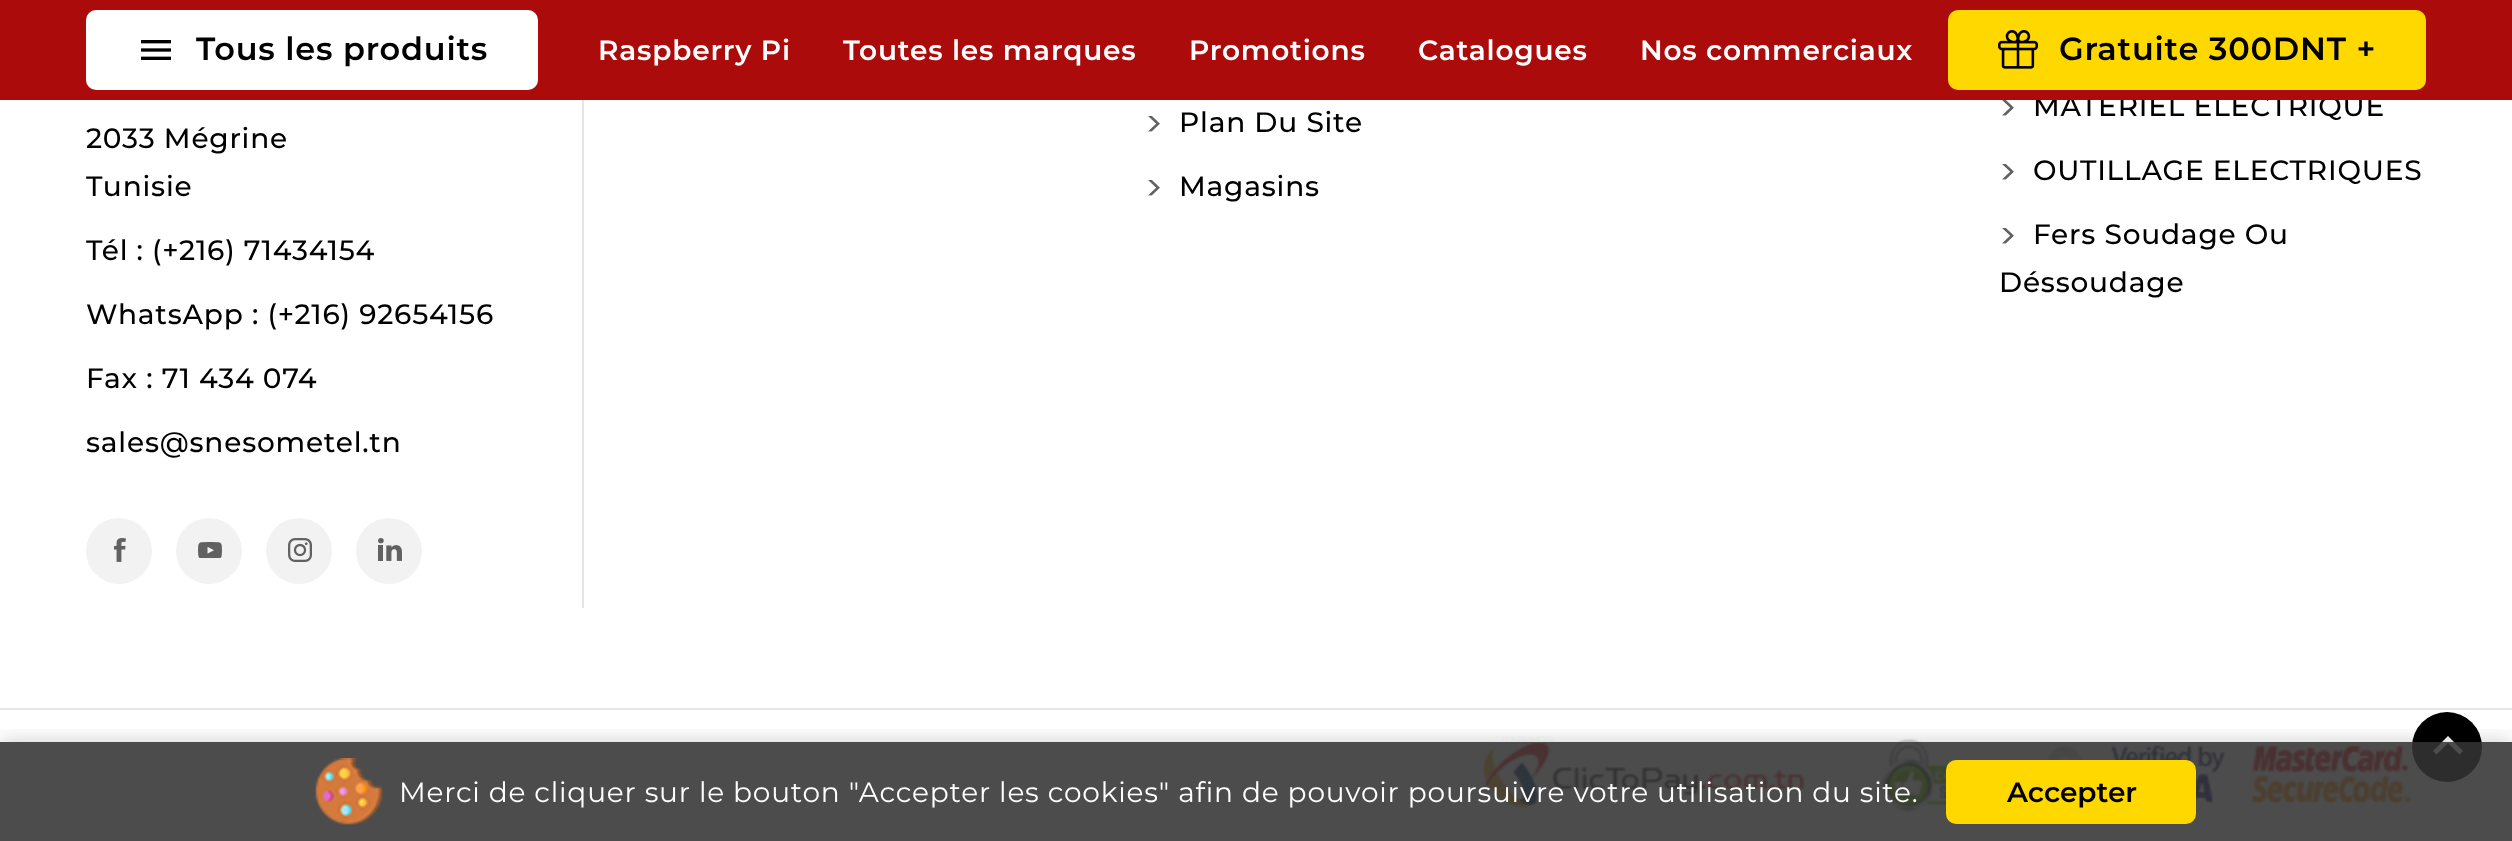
<svg xmlns="http://www.w3.org/2000/svg" width="2512" height="841" viewBox="0 0 2512 841">
  <defs>
    <clipPath id="clip1"><rect x="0" y="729" width="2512" height="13"/></clipPath>
  </defs>
  <rect width="100%" height="100%" fill="rgb(255,255,255)"/>
  <text x="2033" y="116" font-family="Montserrat" font-size="28" font-weight="500" letter-spacing="0.8" fill="rgb(0,0,0)">MATÉRIEL ÉLECTRIQUE</text>
  <rect x="0" y="0" width="2512" height="100" fill="rgb(171,11,11)"/>
  <rect x="86" y="10" width="452" height="80" rx="10" fill="rgb(255,255,255)"/>
  <image x="141" y="40" width="30" height="20" href="pic1.png"/>
  <text x="196" y="60" font-family="Montserrat" font-size="32" font-weight="600" letter-spacing="0.8" fill="rgb(0,0,0)">Tous les produits</text>
  <g font-family="Montserrat" font-size="28" font-weight="600" letter-spacing="0.8" fill="rgb(255,255,255)">
    <text x="598" y="60">Raspberry Pi</text>
    <text x="843" y="60">Toutes les marques</text>
    <text x="1189" y="60">Promotions</text>
    <text x="1418" y="60">Catalogues</text>
    <text x="1640" y="60">Nos commerciaux</text>
  </g>
  <rect x="1948" y="10" width="478" height="80" rx="10" fill="rgb(255,216,0)"/>
  <image x="1998" y="30" width="40" height="39" href="pic2.png"/>
  <text x="2059" y="60" font-family="Montserrat" font-size="32" font-weight="600" letter-spacing="0.8" fill="rgb(0,0,0)">Gratuite 300DNT +</text>
  <g font-family="Montserrat" font-size="28" font-weight="500" letter-spacing="0.8" fill="rgb(0,0,0)">
    <text>
      <tspan x="86" y="148">2033 Mégrine</tspan>
      <tspan x="86" y="196">Tunisie</tspan>
    </text>
    <text x="86" y="260">Tél : (+216) 71434154</text>
    <text x="86" y="324">WhatsApp : (+216) 92654156</text>
    <text x="86" y="388">Fax : 71 434 074</text>
    <text x="86" y="452">sales@snesometel.tn</text>
  </g>
  <rect x="582" y="100" width="2" height="508" fill="rgb(229,229,229)"/>
  <circle cx="119" cy="551" r="33" fill="rgb(242,242,242)"/>
  <image x="114" y="538" width="12" height="24" href="pic3.png"/>
  <circle cx="209" cy="551" r="33" fill="rgb(242,242,242)"/>
  <image x="198" y="542" width="24" height="16" href="pic4.png"/>
  <circle cx="299" cy="551" r="33" fill="rgb(242,242,242)"/>
  <image x="288" y="538" width="24" height="24" href="pic5.png"/>
  <circle cx="389" cy="551" r="33" fill="rgb(242,242,242)"/>
  <image x="378" y="538" width="24" height="23" href="pic6.png"/>
  <image x="1148" y="116" width="12" height="16" href="pic7.png"/>
  <text x="1179" y="132" font-family="Montserrat" font-size="28" font-weight="500" letter-spacing="0.8" fill="rgb(0,0,0)">Plan Du Site</text>
  <image x="1148" y="180" width="12" height="16" href="pic7.png"/>
  <text x="1179" y="196" font-family="Montserrat" font-size="28" font-weight="500" letter-spacing="0.8" fill="rgb(0,0,0)">Magasins</text>
  <image x="2002" y="100" width="12" height="16" href="pic7.png"/>
  <image x="2002" y="164" width="12" height="16" href="pic7.png"/>
  <text x="2033" y="180" font-family="Montserrat" font-size="28" font-weight="500" letter-spacing="0.8" fill="rgb(0,0,0)">OUTILLAGE ELECTRIQUES</text>
  <image x="2002" y="228" width="12" height="16" href="pic7.png"/>
  <g font-family="Montserrat" font-size="28" font-weight="500" letter-spacing="0.8" fill="rgb(0,0,0)">
    <text x="2033" y="244">Fers Soudage Ou</text>
    <text x="1999" y="292">Déssoudage</text>
  </g>
  <image x="1474" y="736" width="337" height="80" href="pic9.png"/>
  <image x="1881" y="738" width="532" height="75" href="pic10.png"/>
  <circle cx="2447" cy="747" r="35" fill="rgb(0,0,0)"/>
  <path d="M2448 736L2463 751L2459.5 754.5L2448 743L2436.5 754.5L2433 751Z" fill="rgb(255,255,255)"/>
  <g clip-path="url(#clip1)">
    <rect x="0" y="742" width="2512" height="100" fill="rgba(0,0,0,0.2)" filter="blur(10px)"/>
  </g>
  <rect x="0" y="742" width="2512" height="99" fill="rgba(51,51,51,0.88)"/>
  <image x="315" y="758" width="68" height="67" href="pic8.png"/>
  <text x="399" y="802" font-family="Montserrat" font-size="28" letter-spacing="0.8" fill="rgb(255,255,255)">Merci de cliquer sur le bouton "Accepter les cookies" afin de pouvoir poursuivre votre utilisation du site.</text>
  <rect x="1946" y="760" width="250" height="64" rx="10" fill="rgb(255,216,0)"/>
  <text x="2007" y="802" font-family="Montserrat" font-size="28" font-weight="600" fill="rgb(0,0,0)">Accepter</text>
  <rect x="0" y="708" width="2512" height="2" fill="rgb(229,229,229)"/>
</svg>
